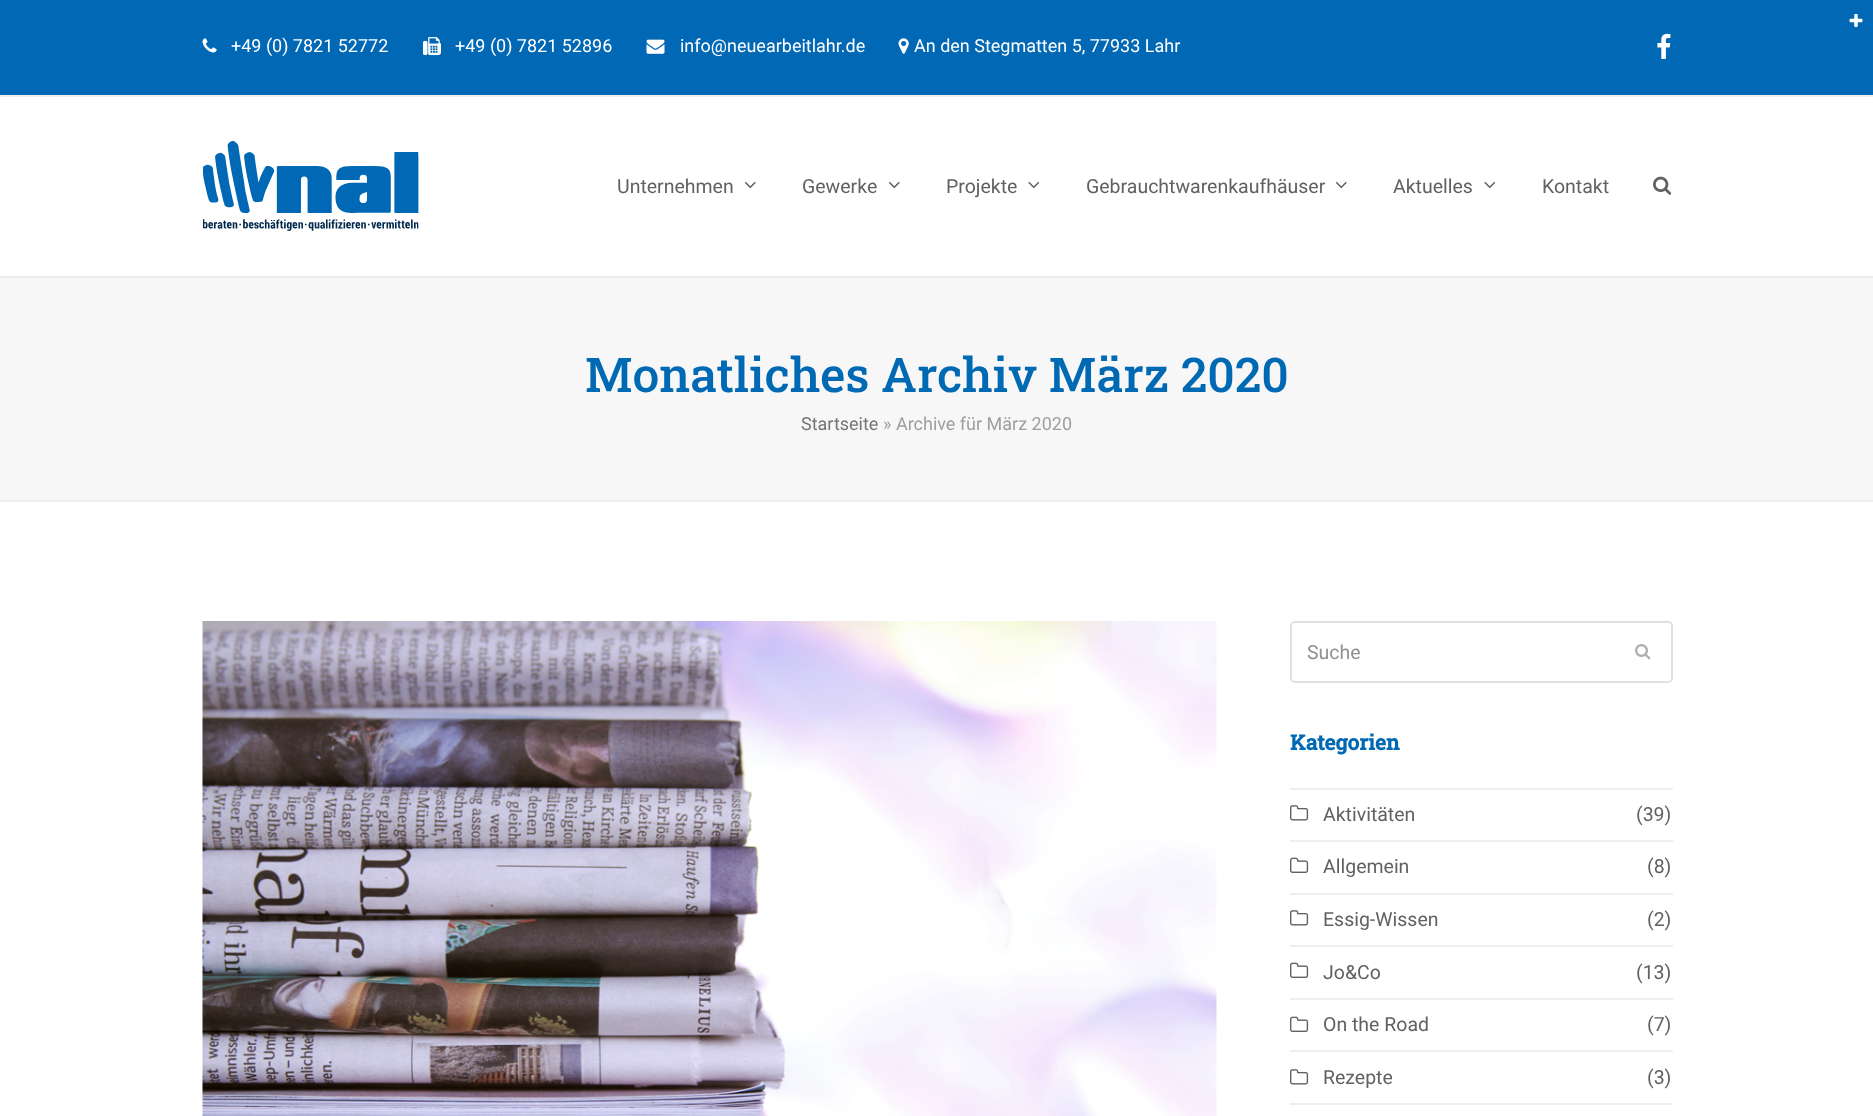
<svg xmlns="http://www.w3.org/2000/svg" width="1873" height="1116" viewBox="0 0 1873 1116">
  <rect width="100%" height="100%" fill="rgb(255,255,255)"/>
  <rect x="0" y="0" width="1873" height="95" fill="rgb(0,104,180)"/>
  <image x="1849" y="14" width="14" height="13" href="pic1.png"/>
  <rect x="0" y="95" width="1873" height="2" fill="rgb(238,238,238)"/>
  <image x="202" y="38" width="15" height="15" href="pic2.png"/>
  <text x="231" y="52" font-family="Roboto" font-size="18" fill="rgb(255,255,255)">+49 (0) 7821 52772</text>
  <image x="423" y="37" width="18" height="19" href="pic3.png"/>
  <text x="455" y="52" font-family="Roboto" font-size="18" fill="rgb(255,255,255)">+49 (0) 7821 52896</text>
  <image x="646" y="39" width="19" height="15" href="pic4.png"/>
  <text x="680" y="52" font-family="Roboto" font-size="18" fill="rgb(255,255,255)">info@neuearbeitlahr.de</text>
  <image x="898" y="38" width="11" height="16" href="pic5.png"/>
  <text x="914" y="52" font-family="Roboto" font-size="18" fill="rgb(255,255,255)">An den Stegmatten 5, 77933 Lahr</text>
  <image x="1657" y="33" width="14" height="26" href="pic6.png"/>
  <image x="203" y="141" width="216" height="90" href="pic7.png"/>
  <text x="617" y="193" font-family="Roboto" font-size="19.5" fill="rgb(97,97,97)">Unternehmen</text>
  <image x="744" y="181" width="12" height="8" href="pic8.png"/>
  <text x="802" y="193" font-family="Roboto" font-size="19.5" fill="rgb(97,97,97)">Gewerke</text>
  <image x="888" y="181" width="12" height="8" href="pic8.png"/>
  <text x="946" y="193" font-family="Roboto" font-size="19.5" fill="rgb(97,97,97)">Projekte</text>
  <image x="1028" y="181" width="12" height="8" href="pic9.png"/>
  <text x="1086" y="193" font-family="Roboto" font-size="19.5" fill="rgb(97,97,97)">Gebrauchtwarenkaufhäuser</text>
  <image x="1335" y="181" width="12" height="8" href="pic8.png"/>
  <text x="1393" y="193" font-family="Roboto" font-size="19.5" fill="rgb(97,97,97)">Aktuelles</text>
  <image x="1484" y="181" width="12" height="8" href="pic9.png"/>
  <text x="1542" y="193" font-family="Roboto" font-size="19.5" fill="rgb(97,97,97)">Kontakt</text>
  <image x="1653" y="176" width="19" height="19" href="pic10.png"/>
  <rect x="0" y="278" width="1873" height="222" fill="rgb(247,247,247)"/>
  <rect x="0" y="276" width="1873" height="2" fill="rgb(238,238,238)"/>
  <rect x="0" y="500" width="1873" height="2" fill="rgb(238,238,238)"/>
  <text x="585" y="392" font-family="Roboto Slab" font-size="48" font-weight="500" fill="rgb(0,105,180)">Monatliches Archiv März 2020</text>
  <text x="801" y="430" font-family="Roboto" font-size="18" fill="rgb(117,117,117)">Startseite</text>
  <text x="883" y="430" font-family="Roboto" font-size="18" fill="rgb(158,158,158)">» Archive für März 2020</text>
  <image x="202" y="621" width="1015" height="495" href="pic11.png"/>
  <rect x="1291" y="622" width="381" height="60" rx="4" fill="none" stroke="rgb(224,224,224)" stroke-width="2"/>
  <text x="1307" y="659" font-family="Roboto" font-size="19.5" fill="rgb(144,144,144)">Suche</text>
  <image x="1635" y="644" width="16" height="16" href="pic12.png"/>
  <text x="1290" y="750" font-family="Roboto Slab" font-size="21" font-weight="bold" fill="rgb(0,105,180)">Kategorien</text>
  <rect x="1290" y="788" width="383" height="2" fill="rgb(238,238,238)"/>
  <rect x="1290" y="840" width="383" height="2" fill="rgb(238,238,238)"/>
  <image x="1290" y="805" width="19" height="16" href="pic13.png"/>
  <g font-family="Roboto" font-size="19.5" fill="rgb(97,97,97)">
    <text x="1323" y="821">Aktivitäten</text>
    <text x="1636" y="821">(39)</text>
  </g>
  <rect x="1290" y="893" width="383" height="2" fill="rgb(238,238,238)"/>
  <image x="1290" y="857" width="19" height="16" href="pic14.png"/>
  <g font-family="Roboto" font-size="19.5" fill="rgb(97,97,97)">
    <text x="1323" y="873">Allgemein</text>
    <text x="1647" y="873">(8)</text>
  </g>
  <rect x="1290" y="945" width="383" height="2" fill="rgb(238,238,238)"/>
  <image x="1290" y="910" width="19" height="16" href="pic13.png"/>
  <g font-family="Roboto" font-size="19.5" fill="rgb(97,97,97)">
    <text x="1323" y="926">Essig-Wissen</text>
    <text x="1647" y="926">(2)</text>
  </g>
  <rect x="1290" y="998" width="383" height="2" fill="rgb(238,238,238)"/>
  <image x="1290" y="962" width="19" height="16" href="pic14.png"/>
  <g font-family="Roboto" font-size="19.5" fill="rgb(97,97,97)">
    <text x="1323" y="979">Jo&amp;Co</text>
    <text x="1636" y="979">(13)</text>
  </g>
  <rect x="1290" y="1050" width="383" height="2" fill="rgb(238,238,238)"/>
  <image x="1290" y="1016" width="19" height="16" href="pic14.png"/>
  <g font-family="Roboto" font-size="19.5" fill="rgb(97,97,97)">
    <text x="1323" y="1031">On the Road</text>
    <text x="1647" y="1031">(7)</text>
  </g>
  <rect x="1290" y="1103" width="383" height="2" fill="rgb(238,238,238)"/>
  <image x="1290" y="1069" width="19" height="16" href="pic13.png"/>
  <g font-family="Roboto" font-size="19.5" fill="rgb(97,97,97)">
    <text x="1323" y="1084">Rezepte</text>
    <text x="1647" y="1084">(3)</text>
  </g>
</svg>
